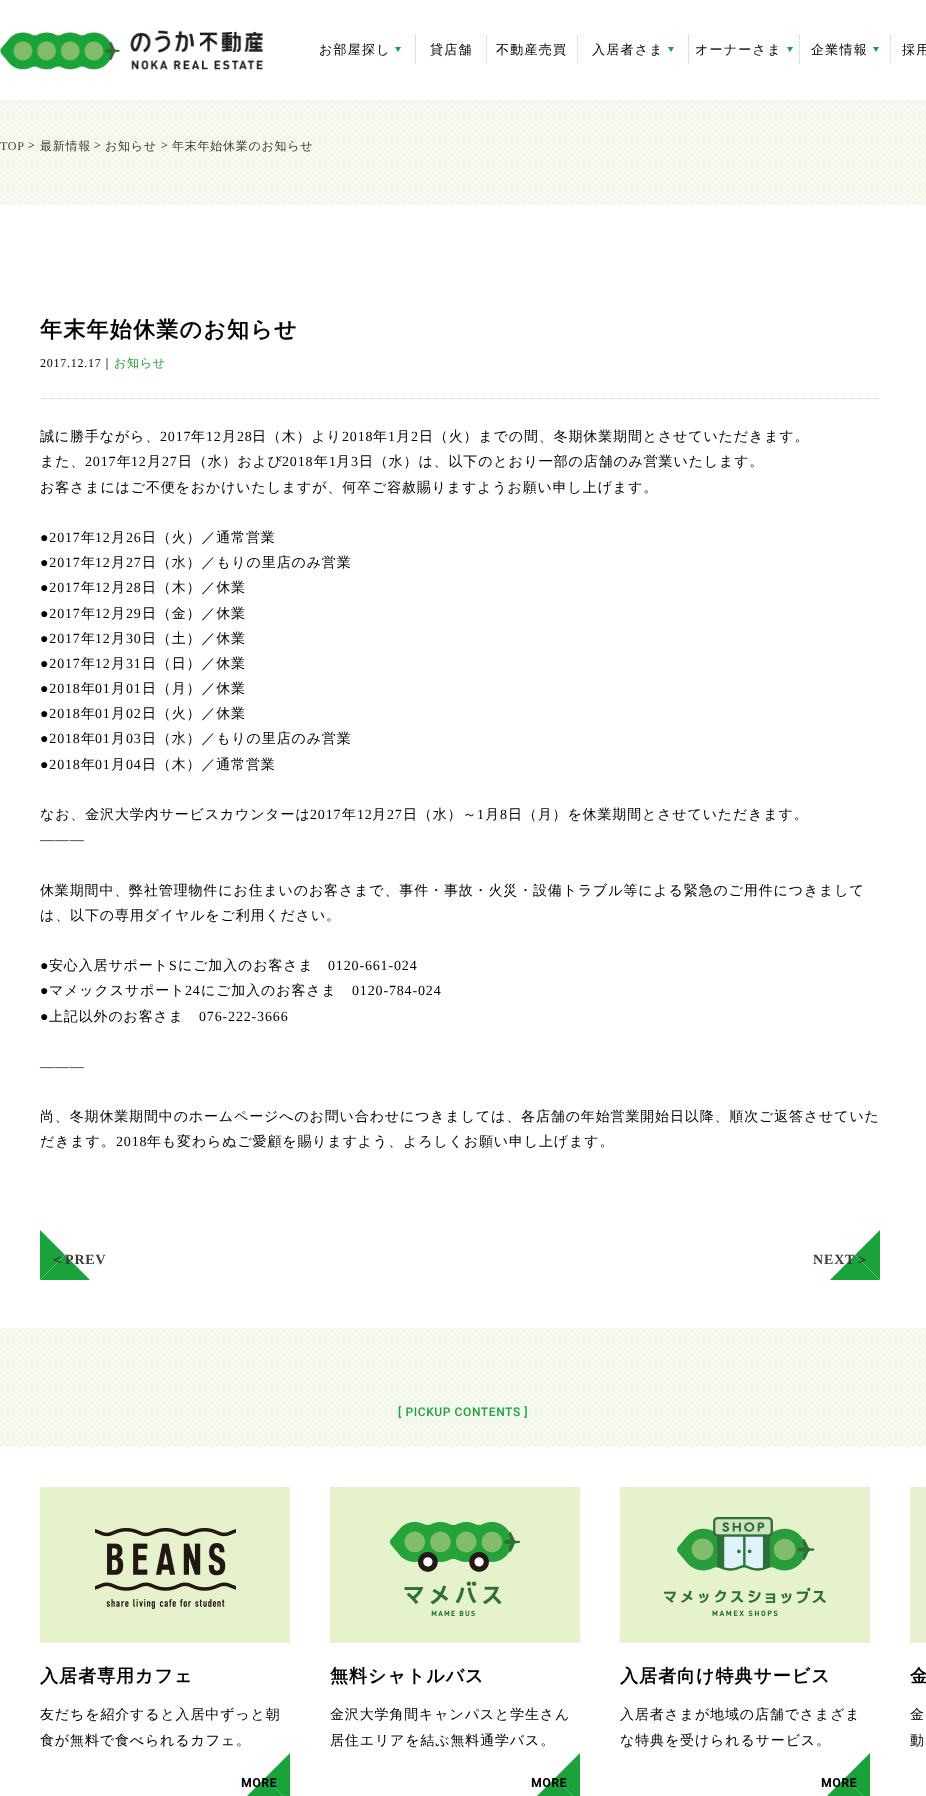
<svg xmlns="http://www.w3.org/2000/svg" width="926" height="1796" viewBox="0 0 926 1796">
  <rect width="100%" height="100%" fill="rgb(255,255,255)"/>
  <image x="0" y="100" width="926" height="1347" href="pic1.png"/>
  <image x="0" y="30" width="263" height="40" href="pic2.png"/>
  <path d="M415.5 35V65" fill="none" stroke="rgb(204,204,204)" stroke-dasharray="1 1"/>
  <text x="319" y="54" font-family="WenQuanYi Zen Hei" font-size="13" font-weight="500" letter-spacing="1.25" fill="rgb(0,0,0)">お部屋探し</text>
  <path d="M395 47H401L398 52Z" fill="rgb(23,163,58)"/>
  <path d="M486.5 35V65" fill="none" stroke="rgb(204,204,204)" stroke-dasharray="1 1"/>
  <text x="430" y="54" font-family="WenQuanYi Zen Hei" font-size="13" font-weight="500" letter-spacing="1.25" fill="rgb(0,0,0)">貸店舗</text>
  <path d="M577.5 35V65" fill="none" stroke="rgb(204,204,204)" stroke-dasharray="1 1"/>
  <text x="496" y="54" font-family="WenQuanYi Zen Hei" font-size="13" font-weight="500" letter-spacing="1.25" fill="rgb(0,0,0)">不動産売買</text>
  <path d="M688.5 35V65" fill="none" stroke="rgb(204,204,204)" stroke-dasharray="1 1"/>
  <text x="592" y="54" font-family="WenQuanYi Zen Hei" font-size="13" font-weight="500" letter-spacing="1.25" fill="rgb(0,0,0)">入居者さま</text>
  <path d="M668 47H674L671 52Z" fill="rgb(23,163,58)"/>
  <path d="M799.5 35V65" fill="none" stroke="rgb(204,204,204)" stroke-dasharray="1 1"/>
  <text x="695" y="54" font-family="WenQuanYi Zen Hei" font-size="13" font-weight="500" letter-spacing="1.25" fill="rgb(0,0,0)">オーナーさま</text>
  <path d="M787 47H793L790 52Z" fill="rgb(23,163,58)"/>
  <path d="M890.5 35V65" fill="none" stroke="rgb(204,204,204)" stroke-dasharray="1 1"/>
  <text x="811" y="54" font-family="WenQuanYi Zen Hei" font-size="13" font-weight="500" letter-spacing="1.25" fill="rgb(0,0,0)">企業情報</text>
  <path d="M873 47H879L876 52Z" fill="rgb(23,163,58)"/>
  <text x="902" y="54" font-family="WenQuanYi Zen Hei" font-size="13" font-weight="500" letter-spacing="1.25" fill="rgb(0,0,0)">採用</text>
  <text x="0" y="150" font-family="Liberation Serif" font-size="12" letter-spacing="0.75" fill="rgb(62,58,57)">TOP</text>
  <text x="28" y="149" font-family="Liberation Serif" font-size="12" letter-spacing="0.75" fill="rgb(0,0,0)">&gt;</text>
  <text x="40" y="150" font-family="WenQuanYi Zen Hei" font-size="12" font-weight="500" letter-spacing="0.75" fill="rgb(62,58,57)">最新情報</text>
  <text x="94" y="149" font-family="Liberation Serif" font-size="12" letter-spacing="0.75" fill="rgb(0,0,0)">&gt;</text>
  <text x="105" y="150" font-family="WenQuanYi Zen Hei" font-size="12" font-weight="500" letter-spacing="0.75" fill="rgb(62,58,57)">お知らせ</text>
  <text x="161" y="149" font-family="Liberation Serif" font-size="12" letter-spacing="0.75" fill="rgb(0,0,0)">&gt;</text>
  <text x="172" y="150" font-family="WenQuanYi Zen Hei" font-size="12" font-weight="500" letter-spacing="0.75" fill="rgb(62,58,57)">年末年始休業のお知らせ</text>
  <rect x="0" y="205" width="926" height="1123" fill="rgb(255,255,255)"/>
  <path d="M40 398.5H880" fill="none" stroke="rgb(204,204,204)" stroke-dasharray="1 1"/>
  <text x="40" y="337" font-family="WenQuanYi Zen Hei" font-size="22" font-weight="bold" letter-spacing="1.25" fill="rgb(0,0,0)">年末年始休業のお知らせ</text>
  <text x="40" y="367" font-family="Liberation Serif" font-size="12" letter-spacing="0.75" fill="rgb(0,0,0)">2017.12.17</text>
  <text x="101" y="367" font-family="WenQuanYi Zen Hei" font-size="12" font-weight="500" letter-spacing="0.75" fill="rgb(0,0,0)">｜</text>
  <text x="114" y="367" font-family="WenQuanYi Zen Hei" font-size="12" font-weight="500" letter-spacing="0.75" fill="rgb(31,161,55)">お知らせ</text>
  <text x="40" y="441" font-family="WenQuanYi Zen Hei" font-size="14" font-weight="500" letter-spacing="0.85" fill="rgb(0,0,0)">誠に勝手ながら、</text>
  <text x="160" y="441" font-family="Liberation Serif" font-size="14" letter-spacing="0.85" fill="rgb(0,0,0)">2017</text>
  <text x="191" y="441" font-family="WenQuanYi Zen Hei" font-size="14" font-weight="500" letter-spacing="0.85" fill="rgb(0,0,0)">年</text>
  <text x="206" y="441" font-family="Liberation Serif" font-size="14" letter-spacing="0.85" fill="rgb(0,0,0)">12</text>
  <text x="222" y="441" font-family="WenQuanYi Zen Hei" font-size="14" font-weight="500" letter-spacing="0.85" fill="rgb(0,0,0)">月</text>
  <text x="237" y="441" font-family="Liberation Serif" font-size="14" letter-spacing="0.85" fill="rgb(0,0,0)">28</text>
  <text x="252" y="441" font-family="WenQuanYi Zen Hei" font-size="14" font-weight="500" letter-spacing="0.85" fill="rgb(0,0,0)">日（木）より</text>
  <text x="342" y="441" font-family="Liberation Serif" font-size="14" letter-spacing="0.85" fill="rgb(0,0,0)">2018</text>
  <text x="373" y="441" font-family="WenQuanYi Zen Hei" font-size="14" font-weight="500" letter-spacing="0.85" fill="rgb(0,0,0)">年</text>
  <text x="388" y="441" font-family="Liberation Serif" font-size="14" letter-spacing="0.85" fill="rgb(0,0,0)">1</text>
  <text x="396" y="441" font-family="WenQuanYi Zen Hei" font-size="14" font-weight="500" letter-spacing="0.85" fill="rgb(0,0,0)">月</text>
  <text x="411" y="441" font-family="Liberation Serif" font-size="14" letter-spacing="0.85" fill="rgb(0,0,0)">2</text>
  <g font-family="WenQuanYi Zen Hei" font-size="14" font-weight="500" letter-spacing="0.85" fill="rgb(0,0,0)">
    <text x="419" y="441">日（火）までの間、冬期休業期間とさせていただきます。</text>
    <text x="40" y="466">また、</text>
  </g>
  <text x="85" y="466" font-family="Liberation Serif" font-size="14" letter-spacing="0.85" fill="rgb(0,0,0)">2017</text>
  <text x="117" y="466" font-family="WenQuanYi Zen Hei" font-size="14" font-weight="500" letter-spacing="0.85" fill="rgb(0,0,0)">年</text>
  <text x="131" y="466" font-family="Liberation Serif" font-size="14" letter-spacing="0.85" fill="rgb(0,0,0)">12</text>
  <text x="147" y="466" font-family="WenQuanYi Zen Hei" font-size="14" font-weight="500" letter-spacing="0.85" fill="rgb(0,0,0)">月</text>
  <text x="162" y="466" font-family="Liberation Serif" font-size="14" letter-spacing="0.85" fill="rgb(0,0,0)">27</text>
  <text x="178" y="466" font-family="WenQuanYi Zen Hei" font-size="14" font-weight="500" letter-spacing="0.85" fill="rgb(0,0,0)">日（水）および</text>
  <text x="282" y="466" font-family="Liberation Serif" font-size="14" letter-spacing="0.85" fill="rgb(0,0,0)">2018</text>
  <text x="314" y="466" font-family="WenQuanYi Zen Hei" font-size="14" font-weight="500" letter-spacing="0.85" fill="rgb(0,0,0)">年</text>
  <text x="329" y="466" font-family="Liberation Serif" font-size="14" letter-spacing="0.85" fill="rgb(0,0,0)">1</text>
  <text x="336" y="466" font-family="WenQuanYi Zen Hei" font-size="14" font-weight="500" letter-spacing="0.85" fill="rgb(0,0,0)">月</text>
  <text x="351" y="466" font-family="Liberation Serif" font-size="14" letter-spacing="0.85" fill="rgb(0,0,0)">3</text>
  <g font-family="WenQuanYi Zen Hei" font-size="14" font-weight="500" letter-spacing="0.85" fill="rgb(0,0,0)">
    <text x="359" y="466">日（水）は、以下のとおり一部の店舗のみ営業いたします。</text>
    <text x="40" y="492">お客さまにはご不便をおかけいたしますが、何卒ご容赦賜りますようお願い申し上げます。</text>
  </g>
  <text x="40" y="542" font-family="Liberation Serif" font-size="14" letter-spacing="0.85" fill="rgb(0,0,0)">●2017</text>
  <text x="81" y="542" font-family="WenQuanYi Zen Hei" font-size="14" font-weight="500" letter-spacing="0.85" fill="rgb(0,0,0)">年</text>
  <text x="95" y="542" font-family="Liberation Serif" font-size="14" letter-spacing="0.85" fill="rgb(0,0,0)">12</text>
  <text x="111" y="542" font-family="WenQuanYi Zen Hei" font-size="14" font-weight="500" letter-spacing="0.85" fill="rgb(0,0,0)">月</text>
  <text x="126" y="542" font-family="Liberation Serif" font-size="14" letter-spacing="0.85" fill="rgb(0,0,0)">26</text>
  <text x="142" y="542" font-family="WenQuanYi Zen Hei" font-size="14" font-weight="500" letter-spacing="0.85" fill="rgb(0,0,0)">日（火）／通常営業</text>
  <text x="40" y="567" font-family="Liberation Serif" font-size="14" letter-spacing="0.85" fill="rgb(0,0,0)">●2017</text>
  <text x="81" y="567" font-family="WenQuanYi Zen Hei" font-size="14" font-weight="500" letter-spacing="0.85" fill="rgb(0,0,0)">年</text>
  <text x="95" y="567" font-family="Liberation Serif" font-size="14" letter-spacing="0.85" fill="rgb(0,0,0)">12</text>
  <text x="111" y="567" font-family="WenQuanYi Zen Hei" font-size="14" font-weight="500" letter-spacing="0.85" fill="rgb(0,0,0)">月</text>
  <text x="126" y="567" font-family="Liberation Serif" font-size="14" letter-spacing="0.85" fill="rgb(0,0,0)">27</text>
  <text x="142" y="567" font-family="WenQuanYi Zen Hei" font-size="14" font-weight="500" letter-spacing="0.85" fill="rgb(0,0,0)">日（水）／もりの里店のみ営業</text>
  <text x="40" y="592" font-family="Liberation Serif" font-size="14" letter-spacing="0.85" fill="rgb(0,0,0)">●2017</text>
  <text x="81" y="592" font-family="WenQuanYi Zen Hei" font-size="14" font-weight="500" letter-spacing="0.85" fill="rgb(0,0,0)">年</text>
  <text x="95" y="592" font-family="Liberation Serif" font-size="14" letter-spacing="0.85" fill="rgb(0,0,0)">12</text>
  <text x="111" y="592" font-family="WenQuanYi Zen Hei" font-size="14" font-weight="500" letter-spacing="0.85" fill="rgb(0,0,0)">月</text>
  <text x="126" y="592" font-family="Liberation Serif" font-size="14" letter-spacing="0.85" fill="rgb(0,0,0)">28</text>
  <text x="142" y="592" font-family="WenQuanYi Zen Hei" font-size="14" font-weight="500" letter-spacing="0.85" fill="rgb(0,0,0)">日（木）／休業</text>
  <text x="40" y="618" font-family="Liberation Serif" font-size="14" letter-spacing="0.85" fill="rgb(0,0,0)">●2017</text>
  <text x="81" y="618" font-family="WenQuanYi Zen Hei" font-size="14" font-weight="500" letter-spacing="0.85" fill="rgb(0,0,0)">年</text>
  <text x="95" y="618" font-family="Liberation Serif" font-size="14" letter-spacing="0.85" fill="rgb(0,0,0)">12</text>
  <text x="111" y="618" font-family="WenQuanYi Zen Hei" font-size="14" font-weight="500" letter-spacing="0.85" fill="rgb(0,0,0)">月</text>
  <text x="126" y="618" font-family="Liberation Serif" font-size="14" letter-spacing="0.85" fill="rgb(0,0,0)">29</text>
  <text x="142" y="618" font-family="WenQuanYi Zen Hei" font-size="14" font-weight="500" letter-spacing="0.85" fill="rgb(0,0,0)">日（金）／休業</text>
  <text x="40" y="643" font-family="Liberation Serif" font-size="14" letter-spacing="0.85" fill="rgb(0,0,0)">●2017</text>
  <text x="81" y="643" font-family="WenQuanYi Zen Hei" font-size="14" font-weight="500" letter-spacing="0.85" fill="rgb(0,0,0)">年</text>
  <text x="95" y="643" font-family="Liberation Serif" font-size="14" letter-spacing="0.85" fill="rgb(0,0,0)">12</text>
  <text x="111" y="643" font-family="WenQuanYi Zen Hei" font-size="14" font-weight="500" letter-spacing="0.85" fill="rgb(0,0,0)">月</text>
  <text x="126" y="643" font-family="Liberation Serif" font-size="14" letter-spacing="0.85" fill="rgb(0,0,0)">30</text>
  <text x="142" y="643" font-family="WenQuanYi Zen Hei" font-size="14" font-weight="500" letter-spacing="0.85" fill="rgb(0,0,0)">日（土）／休業</text>
  <text x="40" y="668" font-family="Liberation Serif" font-size="14" letter-spacing="0.85" fill="rgb(0,0,0)">●2017</text>
  <text x="81" y="668" font-family="WenQuanYi Zen Hei" font-size="14" font-weight="500" letter-spacing="0.85" fill="rgb(0,0,0)">年</text>
  <text x="95" y="668" font-family="Liberation Serif" font-size="14" letter-spacing="0.85" fill="rgb(0,0,0)">12</text>
  <text x="111" y="668" font-family="WenQuanYi Zen Hei" font-size="14" font-weight="500" letter-spacing="0.85" fill="rgb(0,0,0)">月</text>
  <text x="126" y="668" font-family="Liberation Serif" font-size="14" letter-spacing="0.85" fill="rgb(0,0,0)">31</text>
  <text x="142" y="668" font-family="WenQuanYi Zen Hei" font-size="14" font-weight="500" letter-spacing="0.85" fill="rgb(0,0,0)">日（日）／休業</text>
  <text x="40" y="693" font-family="Liberation Serif" font-size="14" letter-spacing="0.85" fill="rgb(0,0,0)">●2018</text>
  <text x="81" y="693" font-family="WenQuanYi Zen Hei" font-size="14" font-weight="500" letter-spacing="0.85" fill="rgb(0,0,0)">年</text>
  <text x="95" y="693" font-family="Liberation Serif" font-size="14" letter-spacing="0.85" fill="rgb(0,0,0)">01</text>
  <text x="111" y="693" font-family="WenQuanYi Zen Hei" font-size="14" font-weight="500" letter-spacing="0.85" fill="rgb(0,0,0)">月</text>
  <text x="126" y="693" font-family="Liberation Serif" font-size="14" letter-spacing="0.85" fill="rgb(0,0,0)">01</text>
  <text x="142" y="693" font-family="WenQuanYi Zen Hei" font-size="14" font-weight="500" letter-spacing="0.85" fill="rgb(0,0,0)">日（月）／休業</text>
  <text x="40" y="718" font-family="Liberation Serif" font-size="14" letter-spacing="0.85" fill="rgb(0,0,0)">●2018</text>
  <text x="81" y="718" font-family="WenQuanYi Zen Hei" font-size="14" font-weight="500" letter-spacing="0.85" fill="rgb(0,0,0)">年</text>
  <text x="95" y="718" font-family="Liberation Serif" font-size="14" letter-spacing="0.85" fill="rgb(0,0,0)">01</text>
  <text x="111" y="718" font-family="WenQuanYi Zen Hei" font-size="14" font-weight="500" letter-spacing="0.85" fill="rgb(0,0,0)">月</text>
  <text x="126" y="718" font-family="Liberation Serif" font-size="14" letter-spacing="0.85" fill="rgb(0,0,0)">02</text>
  <text x="142" y="718" font-family="WenQuanYi Zen Hei" font-size="14" font-weight="500" letter-spacing="0.85" fill="rgb(0,0,0)">日（火）／休業</text>
  <text x="40" y="743" font-family="Liberation Serif" font-size="14" letter-spacing="0.85" fill="rgb(0,0,0)">●2018</text>
  <text x="81" y="743" font-family="WenQuanYi Zen Hei" font-size="14" font-weight="500" letter-spacing="0.85" fill="rgb(0,0,0)">年</text>
  <text x="95" y="743" font-family="Liberation Serif" font-size="14" letter-spacing="0.85" fill="rgb(0,0,0)">01</text>
  <text x="111" y="743" font-family="WenQuanYi Zen Hei" font-size="14" font-weight="500" letter-spacing="0.85" fill="rgb(0,0,0)">月</text>
  <text x="126" y="743" font-family="Liberation Serif" font-size="14" letter-spacing="0.85" fill="rgb(0,0,0)">03</text>
  <text x="142" y="743" font-family="WenQuanYi Zen Hei" font-size="14" font-weight="500" letter-spacing="0.85" fill="rgb(0,0,0)">日（水）／もりの里店のみ営業</text>
  <text x="40" y="769" font-family="Liberation Serif" font-size="14" letter-spacing="0.85" fill="rgb(0,0,0)">●2018</text>
  <text x="81" y="769" font-family="WenQuanYi Zen Hei" font-size="14" font-weight="500" letter-spacing="0.85" fill="rgb(0,0,0)">年</text>
  <text x="95" y="769" font-family="Liberation Serif" font-size="14" letter-spacing="0.85" fill="rgb(0,0,0)">01</text>
  <text x="111" y="769" font-family="WenQuanYi Zen Hei" font-size="14" font-weight="500" letter-spacing="0.85" fill="rgb(0,0,0)">月</text>
  <text x="126" y="769" font-family="Liberation Serif" font-size="14" letter-spacing="0.85" fill="rgb(0,0,0)">04</text>
  <g font-family="WenQuanYi Zen Hei" font-size="14" font-weight="500" letter-spacing="0.85" fill="rgb(0,0,0)">
    <text x="142" y="769">日（木）／通常営業</text>
    <text x="40" y="819">なお、金沢大学内サービスカウンターは</text>
  </g>
  <text x="310" y="819" font-family="Liberation Serif" font-size="14" letter-spacing="0.85" fill="rgb(0,0,0)">2017</text>
  <text x="342" y="819" font-family="WenQuanYi Zen Hei" font-size="14" font-weight="500" letter-spacing="0.85" fill="rgb(0,0,0)">年</text>
  <text x="357" y="819" font-family="Liberation Serif" font-size="14" letter-spacing="0.85" fill="rgb(0,0,0)">12</text>
  <text x="372" y="819" font-family="WenQuanYi Zen Hei" font-size="14" font-weight="500" letter-spacing="0.85" fill="rgb(0,0,0)">月</text>
  <text x="387" y="819" font-family="Liberation Serif" font-size="14" letter-spacing="0.85" fill="rgb(0,0,0)">27</text>
  <text x="403" y="819" font-family="WenQuanYi Zen Hei" font-size="14" font-weight="500" letter-spacing="0.85" fill="rgb(0,0,0)">日（水）～</text>
  <text x="477" y="819" font-family="Liberation Serif" font-size="14" letter-spacing="0.85" fill="rgb(0,0,0)">1</text>
  <text x="485" y="819" font-family="WenQuanYi Zen Hei" font-size="14" font-weight="500" letter-spacing="0.85" fill="rgb(0,0,0)">月</text>
  <text x="500" y="819" font-family="Liberation Serif" font-size="14" letter-spacing="0.85" fill="rgb(0,0,0)">8</text>
  <text x="508" y="819" font-family="WenQuanYi Zen Hei" font-size="14" font-weight="500" letter-spacing="0.85" fill="rgb(0,0,0)">日（月）を休業期間とさせていただきます。</text>
  <text x="40" y="844" font-family="Liberation Serif" font-size="14" letter-spacing="0.85" fill="rgb(0,0,0)">———</text>
  <g font-family="WenQuanYi Zen Hei" font-size="14" font-weight="500" letter-spacing="0.85" fill="rgb(0,0,0)">
    <text>
      <tspan x="40" y="895">休業期間中、弊社管理物件にお住まいのお客さまで、事件・事故・火災・設備トラブル等による緊急のご用件につきまして</tspan>
      <tspan x="40" y="920">は、以下の専用ダイヤルをご利用ください。</tspan>
    </text>
  </g>
  <text x="40" y="970" font-family="Liberation Serif" font-size="14" letter-spacing="0.85" fill="rgb(0,0,0)">●</text>
  <text x="49" y="970" font-family="WenQuanYi Zen Hei" font-size="14" font-weight="500" letter-spacing="0.85" fill="rgb(0,0,0)">安心入居サポート</text>
  <text x="169" y="970" font-family="Liberation Serif" font-size="14" letter-spacing="0.85" fill="rgb(0,0,0)">S</text>
  <text x="178" y="970" font-family="WenQuanYi Zen Hei" font-size="14" font-weight="500" letter-spacing="0.85" fill="rgb(0,0,0)">にご加入のお客さま</text>
  <g font-family="Liberation Serif" font-size="14" letter-spacing="0.85" fill="rgb(0,0,0)">
    <text x="328" y="970">0120-661-024</text>
    <text x="40" y="995">●</text>
  </g>
  <text x="49" y="995" font-family="WenQuanYi Zen Hei" font-size="14" font-weight="500" letter-spacing="0.85" fill="rgb(0,0,0)">マメックスサポート</text>
  <text x="185" y="995" font-family="Liberation Serif" font-size="14" letter-spacing="0.85" fill="rgb(0,0,0)">24</text>
  <text x="201" y="995" font-family="WenQuanYi Zen Hei" font-size="14" font-weight="500" letter-spacing="0.85" fill="rgb(0,0,0)">にご加入のお客さま</text>
  <g font-family="Liberation Serif" font-size="14" letter-spacing="0.85" fill="rgb(0,0,0)">
    <text x="352" y="995">0120-784-024</text>
    <text x="40" y="1021">●</text>
  </g>
  <text x="49" y="1021" font-family="WenQuanYi Zen Hei" font-size="14" font-weight="500" letter-spacing="0.85" fill="rgb(0,0,0)">上記以外のお客さま</text>
  <g font-family="Liberation Serif" font-size="14" letter-spacing="0.85" fill="rgb(0,0,0)">
    <text x="199" y="1021">076-222-3666</text>
    <text x="40" y="1071">———</text>
  </g>
  <g font-family="WenQuanYi Zen Hei" font-size="14" font-weight="500" letter-spacing="0.85" fill="rgb(0,0,0)">
    <text>
      <tspan x="40" y="1121">尚、冬期休業期間中のホームページへのお問い合わせにつきましては、各店舗の年始営業開始日以降、順次ご返答させていた</tspan>
      <tspan x="40" y="1146">だきます。</tspan>
    </text>
  </g>
  <text x="116" y="1146" font-family="Liberation Serif" font-size="14" letter-spacing="0.85" fill="rgb(0,0,0)">2018</text>
  <text x="147" y="1146" font-family="WenQuanYi Zen Hei" font-size="14" font-weight="500" letter-spacing="0.85" fill="rgb(0,0,0)">年も変わらぬご愛顧を賜りますよう、よろしくお願い申し上げます。</text>
  <path d="M90 1280H40L65 1255Z" fill="rgb(25,163,58)"/>
  <path d="M40 1280V1230L65 1255Z" fill="rgb(25,163,58)"/>
  <text x="50" y="1264" font-family="WenQuanYi Zen Hei" font-size="14" font-weight="bold" letter-spacing="0.85" fill="rgb(62,58,57)">＜</text>
  <text x="65" y="1264" font-family="Liberation Serif" font-size="14" font-weight="bold" letter-spacing="0.85" fill="rgb(62,58,57)">PREV</text>
  <path d="M880 1230V1280L855 1255Z" fill="rgb(25,163,58)"/>
  <path d="M880 1280H830L855 1255Z" fill="rgb(25,163,58)"/>
  <text x="813" y="1264" font-family="Liberation Serif" font-size="14" font-weight="bold" letter-spacing="0.85" fill="rgb(62,58,57)">NEXT</text>
  <text x="855" y="1264" font-family="WenQuanYi Zen Hei" font-size="14" font-weight="bold" letter-spacing="0.85" fill="rgb(62,58,57)">＞</text>
  <text x="398" y="1416" font-family="Roboto" font-size="12" font-weight="500" letter-spacing="0.6" fill="rgb(25,163,58)">[ PICKUP CONTENTS ]</text>
  <image x="40" y="1487" width="250" height="156" href="pic3.png"/>
  <text x="40" y="1682" font-family="WenQuanYi Zen Hei" font-size="18" font-weight="bold" letter-spacing="1" fill="rgb(0,0,0)">入居者専用カフェ</text>
  <g font-family="WenQuanYi Zen Hei" font-size="14" font-weight="500" letter-spacing="0.85" fill="rgb(0,0,0)">
    <text>
      <tspan x="40" y="1719">友だちを紹介すると入居中ずっと朝</tspan>
      <tspan x="40" y="1745">食が無料で食べられるカフェ。</tspan>
    </text>
  </g>
  <path d="M290 1753V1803L265 1778Z" fill="rgb(25,163,58)"/>
  <path d="M290 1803H240L265 1778Z" fill="rgb(25,163,58)"/>
  <text x="241" y="1787" font-family="Roboto" font-size="12" font-weight="bold" letter-spacing="0.75" fill="rgb(0,0,0)">MORE</text>
  <image x="330" y="1487" width="250" height="156" href="pic4.png"/>
  <text x="330" y="1682" font-family="WenQuanYi Zen Hei" font-size="18" font-weight="bold" letter-spacing="1" fill="rgb(0,0,0)">無料シャトルバス</text>
  <g font-family="WenQuanYi Zen Hei" font-size="14" font-weight="500" letter-spacing="0.85" fill="rgb(0,0,0)">
    <text>
      <tspan x="330" y="1719">金沢大学角間キャンパスと学生さん</tspan>
      <tspan x="330" y="1745">居住エリアを結ぶ無料通学バス。</tspan>
    </text>
  </g>
  <path d="M580 1753V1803L555 1778Z" fill="rgb(25,163,58)"/>
  <path d="M580 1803H530L555 1778Z" fill="rgb(25,163,58)"/>
  <text x="531" y="1787" font-family="Roboto" font-size="12" font-weight="bold" letter-spacing="0.75" fill="rgb(0,0,0)">MORE</text>
  <image x="620" y="1487" width="250" height="156" href="pic5.png"/>
  <text x="620" y="1682" font-family="WenQuanYi Zen Hei" font-size="18" font-weight="bold" letter-spacing="1" fill="rgb(0,0,0)">入居者向け特典サービス</text>
  <g font-family="WenQuanYi Zen Hei" font-size="14" font-weight="500" letter-spacing="0.85" fill="rgb(0,0,0)">
    <text>
      <tspan x="620" y="1719">入居者さまが地域の店舗でさまざま</tspan>
      <tspan x="620" y="1745">な特典を受けられるサービス。</tspan>
    </text>
  </g>
  <path d="M870 1753V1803L845 1778Z" fill="rgb(25,163,58)"/>
  <path d="M870 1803H820L845 1778Z" fill="rgb(25,163,58)"/>
  <text x="821" y="1787" font-family="Roboto" font-size="12" font-weight="bold" letter-spacing="0.75" fill="rgb(0,0,0)">MORE</text>
  <rect x="910" y="1487" width="16" height="156" fill="rgb(231,241,207)"/>
  <text x="910" y="1682" font-family="WenQuanYi Zen Hei" font-size="18" font-weight="bold" letter-spacing="1" fill="rgb(0,0,0)">金</text>
  <g font-family="WenQuanYi Zen Hei" font-size="14" font-weight="500" letter-spacing="0.85" fill="rgb(0,0,0)">
    <text>
      <tspan x="910" y="1719">金</tspan>
      <tspan x="910" y="1745">動</tspan>
    </text>
  </g>
</svg>
